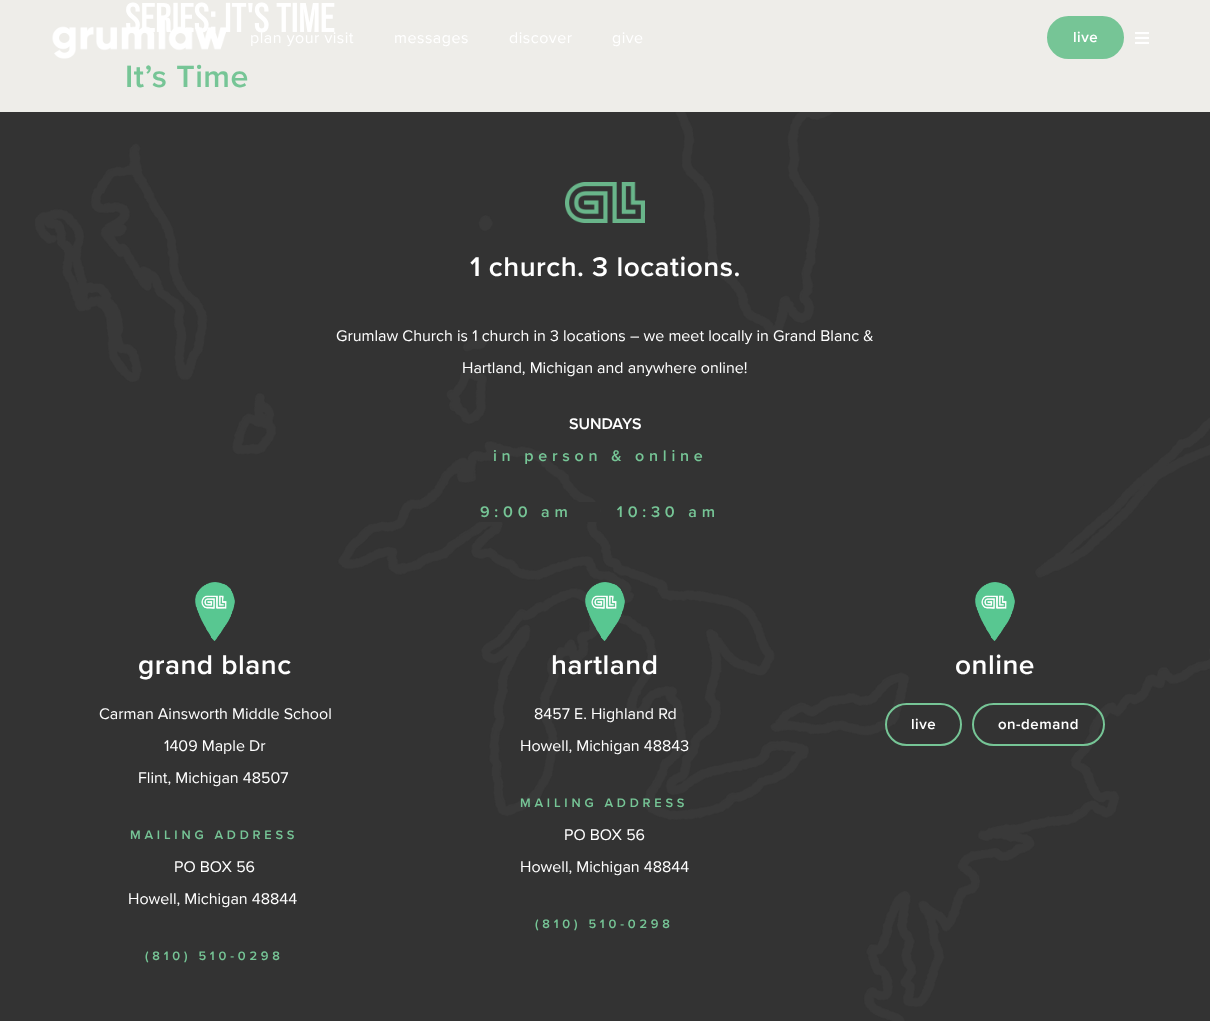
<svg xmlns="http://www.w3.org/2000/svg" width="1210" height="1021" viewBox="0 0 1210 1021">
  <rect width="100%" height="100%" fill="rgb(238,237,233)"/>
  <text x="125" y="32" font-family="Bebas Neue" font-size="40" font-weight="bold" letter-spacing="0.5" fill="rgb(255,255,255)">SERIES: IT'S TIME</text>
  <text x="125" y="87" font-family="Proxima Nova" font-size="32" font-weight="600" letter-spacing="0.5" fill="rgb(118,197,150)">It’s Time</text>
  <image x="52" y="19" width="174" height="40" href="pic1.png"/>
  <g font-family="Proxima Nova" font-size="16" letter-spacing="0.5" fill="rgb(255,255,255)">
    <text x="250" y="43">plan your visit</text>
    <text x="394" y="43">messages</text>
    <text x="509" y="43">discover</text>
    <text x="612" y="43">give</text>
  </g>
  <rect x="1048" y="17" width="75" height="41" rx="20.5" fill="rgb(118,197,150)" stroke="rgb(118,197,150)" stroke-width="2"/>
  <text x="1073" y="42" font-family="Proxima Nova" font-size="15" font-weight="600" letter-spacing="0.5" fill="rgb(255,255,255)">live</text>
  <image x="1135" y="32" width="14" height="12" href="pic2.png"/>
  <rect x="0" y="112" width="1210" height="909" fill="rgb(51,51,51)"/>
  <image x="35" y="112" width="1175" height="909" href="pic3.png"/>
  <image x="565" y="182" width="80" height="41" href="pic4.png"/>
  <text x="470" y="276" font-family="Proxima Nova" font-size="28" font-weight="600" letter-spacing="0.5" fill="rgb(255,255,255)">1 church. 3 locations.</text>
  <g font-family="Proxima Nova" font-size="16" fill="rgb(255,255,255)">
    <text x="336" y="341">Grumlaw Church is 1 church in 3 locations – we meet locally in Grand Blanc &amp;</text>
    <text x="462" y="373">Hartland, Michigan and anywhere online!</text>
  </g>
  <text x="569" y="429" font-family="Proxima Nova" font-size="16" font-weight="600" fill="rgb(255,255,255)">SUNDAYS</text>
  <text x="493" y="461" font-family="Proxima Nova" font-size="16" font-weight="600" letter-spacing="4.75" fill="rgb(118,197,150)">in person &amp; online</text>
  <rect x="480" y="502" width="120" height="20" fill="rgb(51,51,51)"/>
  <text x="480" y="517" font-family="Proxima Nova" font-size="16" font-weight="600" letter-spacing="4.75" fill="rgb(118,197,150)" xml:space="preserve">9:00 am     10:30 am</text>
  <image x="195" y="582" width="40" height="59" href="pic5.png"/>
  <text x="138" y="674" font-family="Proxima Nova" font-size="28" font-weight="600" letter-spacing="0.5" fill="rgb(255,255,255)">grand blanc</text>
  <g font-family="Proxima Nova" font-size="16" fill="rgb(255,255,255)">
    <text x="99" y="719">Carman Ainsworth Middle School</text>
    <text x="164" y="751">1409 Maple Dr</text>
    <text x="138" y="783">Flint, Michigan 48507</text>
  </g>
  <text x="130" y="839" font-family="Proxima Nova" font-size="12.75" font-weight="600" letter-spacing="3.8" fill="rgb(118,197,150)">MAILING ADDRESS</text>
  <g font-family="Proxima Nova" font-size="16" fill="rgb(255,255,255)">
    <text x="174" y="872">PO BOX 56</text>
    <text x="128" y="904">Howell, Michigan 48844</text>
  </g>
  <text x="145" y="960" font-family="Proxima Nova" font-size="12.75" font-weight="600" letter-spacing="3.8" fill="rgb(118,197,150)">(810) 510-0298</text>
  <image x="585" y="582" width="40" height="59" href="pic6.png"/>
  <text x="551" y="674" font-family="Proxima Nova" font-size="28" font-weight="600" letter-spacing="0.5" fill="rgb(255,255,255)">hartland</text>
  <g font-family="Proxima Nova" font-size="16" fill="rgb(255,255,255)">
    <text x="534" y="719">8457 E. Highland Rd</text>
    <text x="520" y="751">Howell, Michigan 48843</text>
  </g>
  <text x="520" y="807" font-family="Proxima Nova" font-size="12.75" font-weight="600" letter-spacing="3.8" fill="rgb(118,197,150)">MAILING ADDRESS</text>
  <g font-family="Proxima Nova" font-size="16" fill="rgb(255,255,255)">
    <text x="564" y="840">PO BOX 56</text>
    <text x="520" y="872">Howell, Michigan 48844</text>
  </g>
  <text x="535" y="928" font-family="Proxima Nova" font-size="12.75" font-weight="600" letter-spacing="3.8" fill="rgb(118,197,150)">(810) 510-0298</text>
  <image x="975" y="582" width="40" height="59" href="pic7.png"/>
  <text x="955" y="674" font-family="Proxima Nova" font-size="28" font-weight="600" letter-spacing="0.5" fill="rgb(255,255,255)">online</text>
  <rect x="886" y="704" width="75" height="41" rx="20.5" fill="none" stroke="rgb(118,197,150)" stroke-width="2"/>
  <text x="911" y="729" font-family="Proxima Nova" font-size="15" font-weight="600" letter-spacing="0.5" fill="rgb(255,255,255)">live</text>
  <rect x="973" y="704" width="131" height="41" rx="20.5" fill="none" stroke="rgb(118,197,150)" stroke-width="2"/>
  <text x="998" y="729" font-family="Proxima Nova" font-size="15" font-weight="600" letter-spacing="0.5" fill="rgb(255,255,255)">on-demand</text>
</svg>
